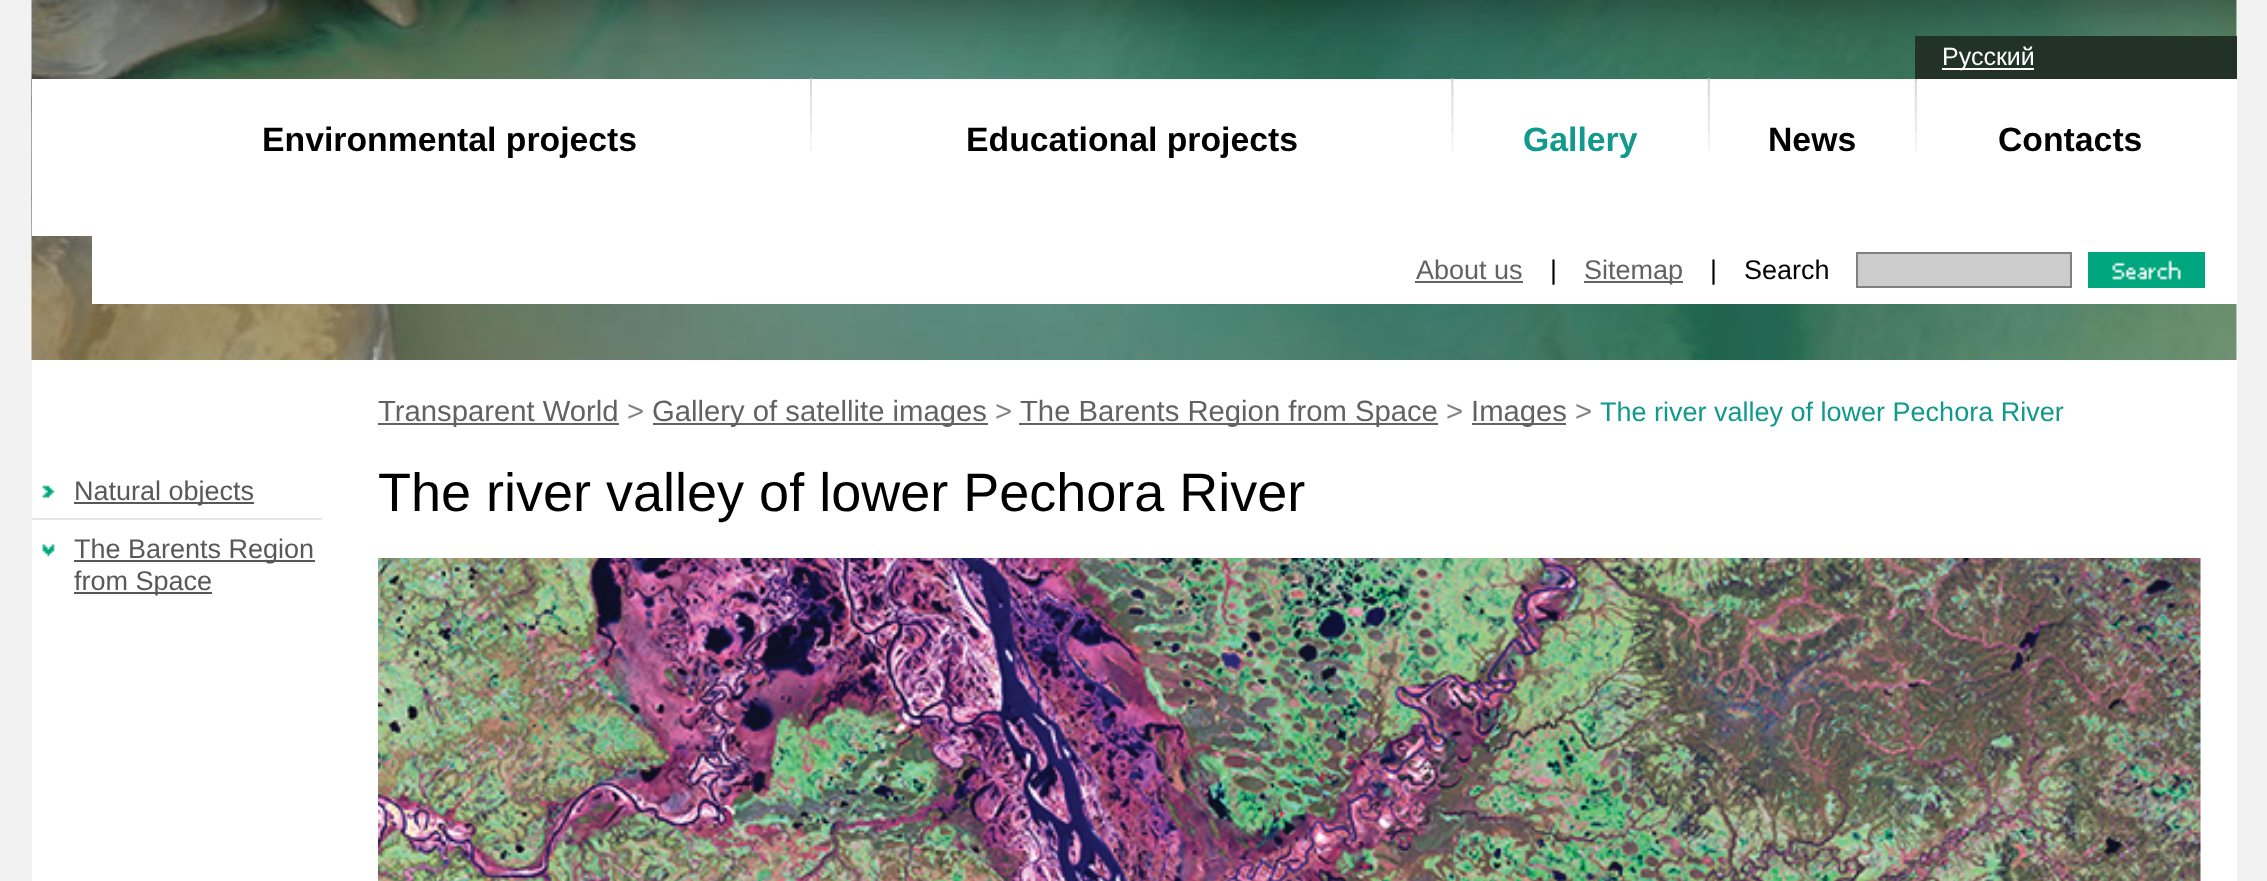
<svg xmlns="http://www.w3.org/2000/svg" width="2267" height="881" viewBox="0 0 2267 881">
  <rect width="100%" height="100%" fill="rgb(242,242,242)"/>
  <rect x="32" y="0" width="2205" height="881" fill="rgb(255,255,255)"/>
  <image x="31" y="0" width="2206" height="360" href="pic1.png"/>
  <rect x="32" y="79" width="2205" height="157" fill="rgb(255,255,255)"/>
  <image x="1914" y="78" width="3" height="73" href="pic5.png"/>
  <rect x="1915" y="36" width="322" height="43" fill="rgb(34,50,39)"/>
  <rect x="1942" y="68" width="92" height="2" fill="rgb(255,255,255)"/>
  <text x="1942" y="65" font-family="Liberation Sans" font-size="25" fill="rgb(255,255,255)">Русский</text>
  <text x="262" y="151" font-family="Liberation Sans" font-size="33.75" font-weight="bold" fill="rgb(0,0,0)">Environmental projects</text>
  <image x="810" y="78" width="3" height="73" href="pic2.png"/>
  <rect x="812" y="79" width="1" height="71" fill="rgb(255,255,255)"/>
  <text x="966" y="151" font-family="Liberation Sans" font-size="33.75" font-weight="bold" fill="rgb(0,0,0)">Educational projects</text>
  <image x="1451" y="78" width="3" height="73" href="pic3.png"/>
  <text x="1523" y="151" font-family="Liberation Sans" font-size="33.75" font-weight="bold" fill="rgb(16,153,140)">Gallery</text>
  <image x="1707" y="78" width="3" height="73" href="pic4.png"/>
  <g font-family="Liberation Sans" font-size="33.75" font-weight="bold" fill="rgb(0,0,0)">
    <text x="1768" y="151">News</text>
    <text x="1998" y="151">Contacts</text>
  </g>
  <rect x="92" y="236" width="2145" height="68" fill="rgb(255,255,255)"/>
  <text x="1416" y="279" font-family="Liberation Sans" font-size="27" fill="rgb(98,98,98)">About us</text>
  <rect x="1415" y="281" width="108" height="2" fill="rgb(98,98,98)"/>
  <text x="1550" y="279" font-family="Liberation Sans" font-size="27" fill="rgb(0,0,0)">|</text>
  <rect x="1584" y="281" width="99" height="2" fill="rgb(98,98,98)"/>
  <text x="1584" y="279" font-family="Liberation Sans" font-size="27" fill="rgb(98,98,98)">Sitemap</text>
  <g font-family="Liberation Sans" font-size="27" fill="rgb(0,0,0)">
    <text x="1710" y="279">|</text>
    <text x="1744" y="279">Search</text>
  </g>
  <rect x="1857" y="253" width="214" height="34" fill="rgb(204,204,204)" stroke="rgb(127,127,127)" stroke-width="2"/>
  <image x="2088" y="252" width="117" height="36" href="pic6.png"/>
  <rect x="378" y="423" width="241" height="2" fill="rgb(98,98,98)"/>
  <text x="378" y="421" font-family="Liberation Sans" font-size="29.25" fill="rgb(98,98,98)">Transparent World</text>
  <text x="627" y="421" font-family="Liberation Sans" font-size="29.25" fill="rgb(129,129,129)">&gt;</text>
  <rect x="653" y="423" width="335" height="2" fill="rgb(98,98,98)"/>
  <text x="652" y="421" font-family="Liberation Sans" font-size="29.25" fill="rgb(98,98,98)">Gallery of satellite images</text>
  <text x="995" y="421" font-family="Liberation Sans" font-size="29.25" fill="rgb(129,129,129)">&gt;</text>
  <rect x="1019" y="423" width="419" height="2" fill="rgb(98,98,98)"/>
  <text x="1020" y="421" font-family="Liberation Sans" font-size="29.25" fill="rgb(98,98,98)">The Barents Region from Space</text>
  <text x="1446" y="421" font-family="Liberation Sans" font-size="29.25" fill="rgb(129,129,129)">&gt;</text>
  <rect x="1472" y="423" width="94" height="2" fill="rgb(98,98,98)"/>
  <text x="1471" y="421" font-family="Liberation Sans" font-size="29.25" fill="rgb(98,98,98)">Images</text>
  <text x="1575" y="421" font-family="Liberation Sans" font-size="29.25" fill="rgb(129,129,129)">&gt;</text>
  <text x="1600" y="421" font-family="Liberation Sans" font-size="27" fill="rgb(16,153,140)">The river valley of lower Pechora River</text>
  <text x="378" y="511" font-family="Liberation Sans" font-size="54" fill="rgb(0,0,0)">The river valley of lower Pechora River</text>
  <image x="378" y="558" width="1823" height="323" href="pic7.png"/>
  <image x="42" y="485" width="13" height="13" href="pic8.png"/>
  <rect x="74" y="502" width="180" height="2" fill="rgb(88,88,88)"/>
  <text x="74" y="500" font-family="Liberation Sans" font-size="27" fill="rgb(88,88,88)">Natural objects</text>
  <rect x="32" y="518" width="290" height="2" fill="rgb(229,229,229)"/>
  <image x="42" y="544" width="13" height="13" href="pic9.png"/>
  <rect x="74" y="560" width="241" height="2" fill="rgb(88,88,88)"/>
  <text x="74" y="558" font-family="Liberation Sans" font-size="27" fill="rgb(88,88,88)">The Barents Region</text>
  <rect x="74" y="592" width="138" height="2" fill="rgb(88,88,88)"/>
  <text x="74" y="590" font-family="Liberation Sans" font-size="27" fill="rgb(88,88,88)">from Space</text>
</svg>
